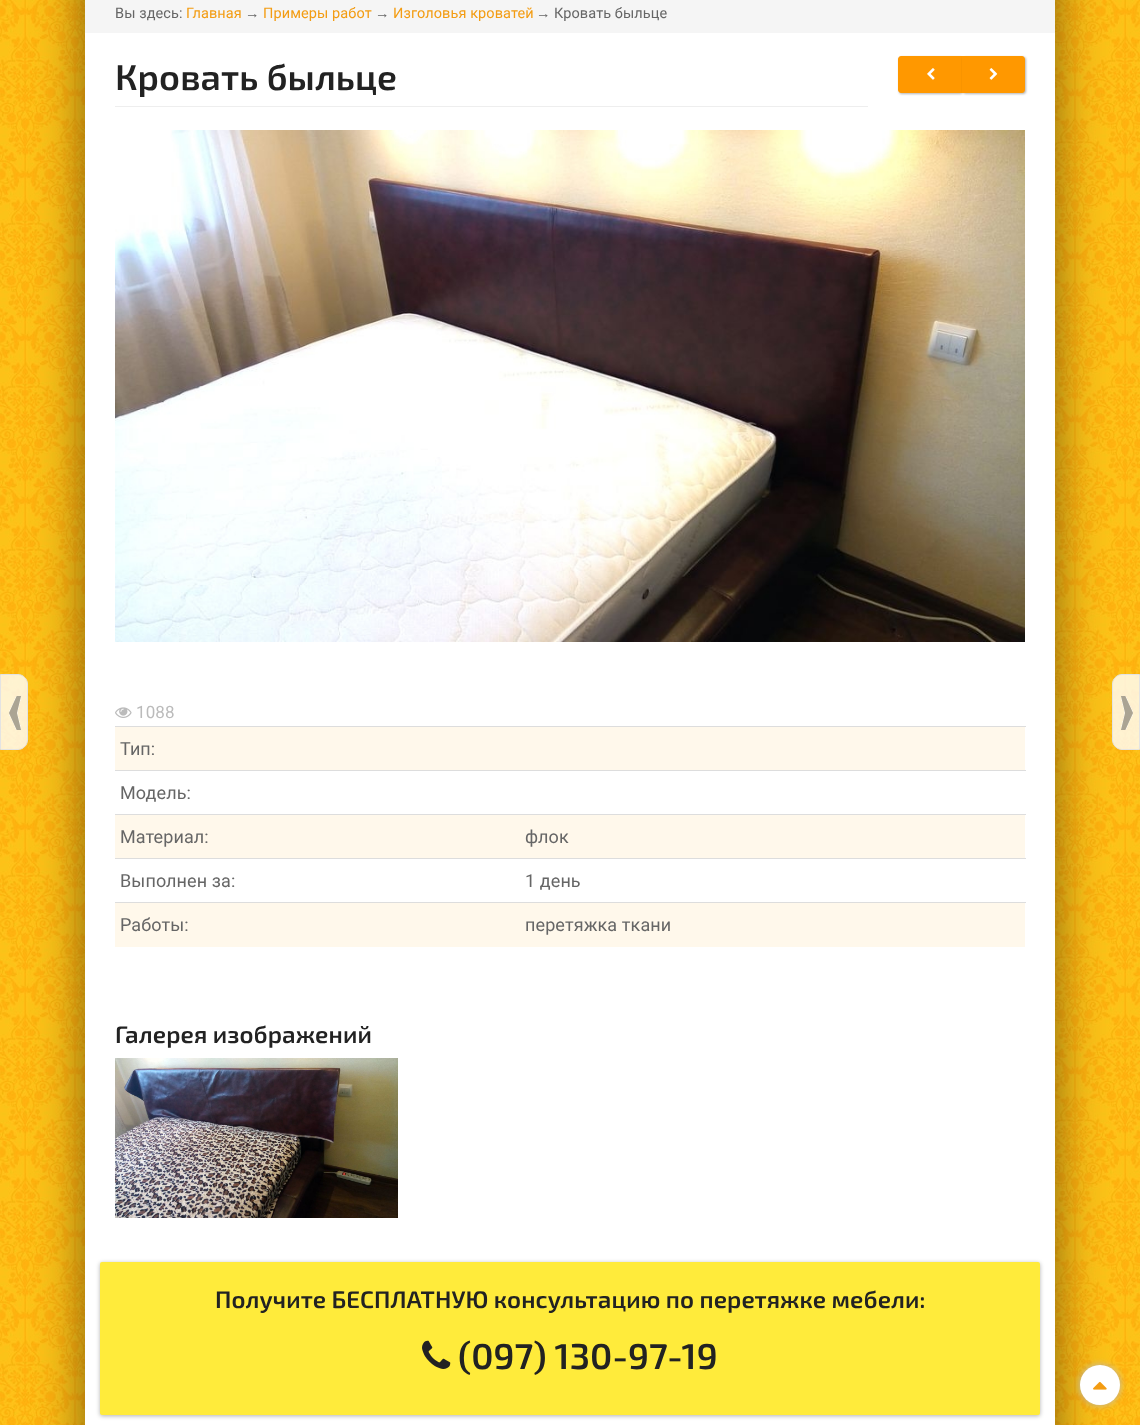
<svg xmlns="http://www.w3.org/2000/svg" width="1140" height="1425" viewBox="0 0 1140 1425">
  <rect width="100%" height="100%" fill="rgb(255,255,255)"/>
  <image x="0" y="0" width="1140" height="1425" href="pic1.png"/>
  <rect x="85" y="-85" width="970" height="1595" rx="10" fill="rgba(0,0,0,0.5)" filter="blur(25px)"/>
  <rect x="85" y="33" width="970" height="1392" fill="rgb(255,255,255)"/>
  <rect x="85" y="0" width="970" height="33" fill="rgb(245,245,245)"/>
  <text x="115" y="18" font-family="Roboto" font-size="14.5" letter-spacing="0.1" fill="rgb(102,102,102)">Вы здесь:</text>
  <text x="186" y="18" font-family="Roboto" font-size="14.5" letter-spacing="0.1" fill="rgb(243,156,18)">Главная</text>
  <text x="245" y="18" font-family="Liberation Sans" font-size="14.5" letter-spacing="0.1" fill="rgb(102,102,102)">→</text>
  <text x="263" y="18" font-family="Roboto" font-size="14.5" letter-spacing="0.1" fill="rgb(243,156,18)">Примеры работ</text>
  <text x="375" y="18" font-family="Liberation Sans" font-size="14.5" letter-spacing="0.1" fill="rgb(102,102,102)">→</text>
  <text x="393" y="18" font-family="Roboto" font-size="14.5" letter-spacing="0.1" fill="rgb(243,156,18)">Изголовья кроватей</text>
  <text x="536" y="18" font-family="Liberation Sans" font-size="14.5" letter-spacing="0.1" fill="rgb(102,102,102)">→</text>
  <text x="554" y="18" font-family="Roboto" font-size="14.5" letter-spacing="0.1" fill="rgb(102,102,102)">Кровать быльце</text>
  <rect x="115" y="106" width="753" height="1" fill="rgb(238,238,238)"/>
  <text x="115" y="90" font-family="'Exo 2'" font-size="36" font-weight="600" letter-spacing="0.1" fill="rgb(34,34,34)">Кровать быльце</text>
  <rect x="899" y="57" width="64" height="37" rx="3" fill="rgba(0,0,0,0.3)" filter="blur(1px)"/>
  <path d="M901 56H962V93H901C899.5 93 898 91.5 898 90V59C898 57.5 899.5 56 901 56Z" fill="rgb(255,152,0)"/>
  <image x="927" y="68" width="8" height="12" href="pic2.png"/>
  <rect x="963" y="57" width="63" height="37" rx="3" fill="rgba(0,0,0,0.3)" filter="blur(1px)"/>
  <path d="M962 56H1022C1023.5 56 1025 57.5 1025 59V90C1025 91.5 1023.5 93 1022 93H962Z" fill="rgb(255,152,0)"/>
  <image x="989" y="68" width="9" height="12" href="pic3.png"/>
  <image x="115" y="130" width="910" height="512" href="pic4.png"/>
  <image x="115" y="707" width="17" height="11" href="pic5.png"/>
  <text x="136" y="718" font-family="Roboto" font-size="17" letter-spacing="0.1" fill="rgb(187,187,187)">1088</text>
  <rect x="115" y="727" width="910" height="43" fill="rgb(255,248,235)"/>
  <rect x="115" y="726" width="911" height="1" fill="rgb(221,221,221)"/>
  <text x="120" y="755" font-family="Roboto" font-size="18" letter-spacing="0.1" fill="rgb(102,102,102)">Тип:</text>
  <rect x="115" y="770" width="911" height="1" fill="rgb(221,221,221)"/>
  <text x="120" y="799" font-family="Roboto" font-size="18" letter-spacing="0.1" fill="rgb(102,102,102)">Модель:</text>
  <rect x="115" y="815" width="910" height="43" fill="rgb(255,248,235)"/>
  <text x="120" y="843" font-family="Roboto" font-size="18" letter-spacing="0.1" fill="rgb(102,102,102)">Материал:</text>
  <rect x="115" y="814" width="911" height="1" fill="rgb(221,221,221)"/>
  <g font-family="Roboto" font-size="18" letter-spacing="0.1" fill="rgb(102,102,102)">
    <text x="525" y="843">флок</text>
    <text x="120" y="887">Выполнен за:</text>
  </g>
  <rect x="115" y="858" width="911" height="1" fill="rgb(221,221,221)"/>
  <text x="525" y="887" font-family="Roboto" font-size="18" letter-spacing="0.1" fill="rgb(102,102,102)">1 день</text>
  <rect x="115" y="903" width="910" height="44" fill="rgb(255,248,235)"/>
  <text x="120" y="931" font-family="Roboto" font-size="18" letter-spacing="0.1" fill="rgb(102,102,102)">Работы:</text>
  <rect x="115" y="902" width="911" height="1" fill="rgb(221,221,221)"/>
  <text x="525" y="931" font-family="Roboto" font-size="18" letter-spacing="0.1" fill="rgb(102,102,102)">перетяжка ткани</text>
  <text x="115" y="1043" font-family="'Exo 2'" font-size="24" font-weight="600" letter-spacing="0.1" fill="rgb(34,34,34)">Галерея изображений</text>
  <image x="115" y="1058" width="283" height="160" href="pic6.png"/>
  <path d="M.5 674.5H18C23 674.5 27.5 679 27.5 684V740C27.5 745 23 749.5 18 749.5H.5Z" fill="rgba(255,255,255,0.8)" stroke="rgb(227,227,227)"/>
  <image x="9" y="696" width="12" height="34" href="pic7.png"/>
  <path d="M1122 674.5H1139.5V749.5H1122C1117 749.5 1112.5 745 1112.5 740V684C1112.5 679 1117 674.5 1122 674.5Z" fill="rgba(255,255,255,0.8)" stroke="rgb(227,227,227)"/>
  <image x="1121" y="696" width="12" height="34" href="pic8.png"/>
  <rect x="100" y="1263" width="940" height="153" rx="2" fill="rgba(0,0,0,0.3)" filter="blur(2px)"/>
  <rect x="100" y="1262" width="940" height="153" rx="2" fill="rgb(255,235,59)"/>
  <text x="215" y="1308" font-family="'Exo 2'" font-size="24" font-weight="600" letter-spacing="0.1" fill="rgb(34,34,34)">Получите БЕСПЛАТНУЮ консультацию по перетяжке мебели:</text>
  <image x="422" y="1340" width="29" height="29" href="pic9.png"/>
  <text x="458" y="1369" font-family="'Exo 2'" font-size="36" font-weight="600" letter-spacing="0.1" fill="rgb(34,34,34)">(097) 130-97-19</text>
  <rect x="1080" y="1365" width="40" height="40" rx="20" fill="rgb(187,187,187)" filter="blur(3.5px)"/>
  <circle cx="1100" cy="1385" r="20" fill="rgb(255,255,255)"/>
  <image x="1093" y="1381" width="14" height="9" href="pic10.png"/>
</svg>
